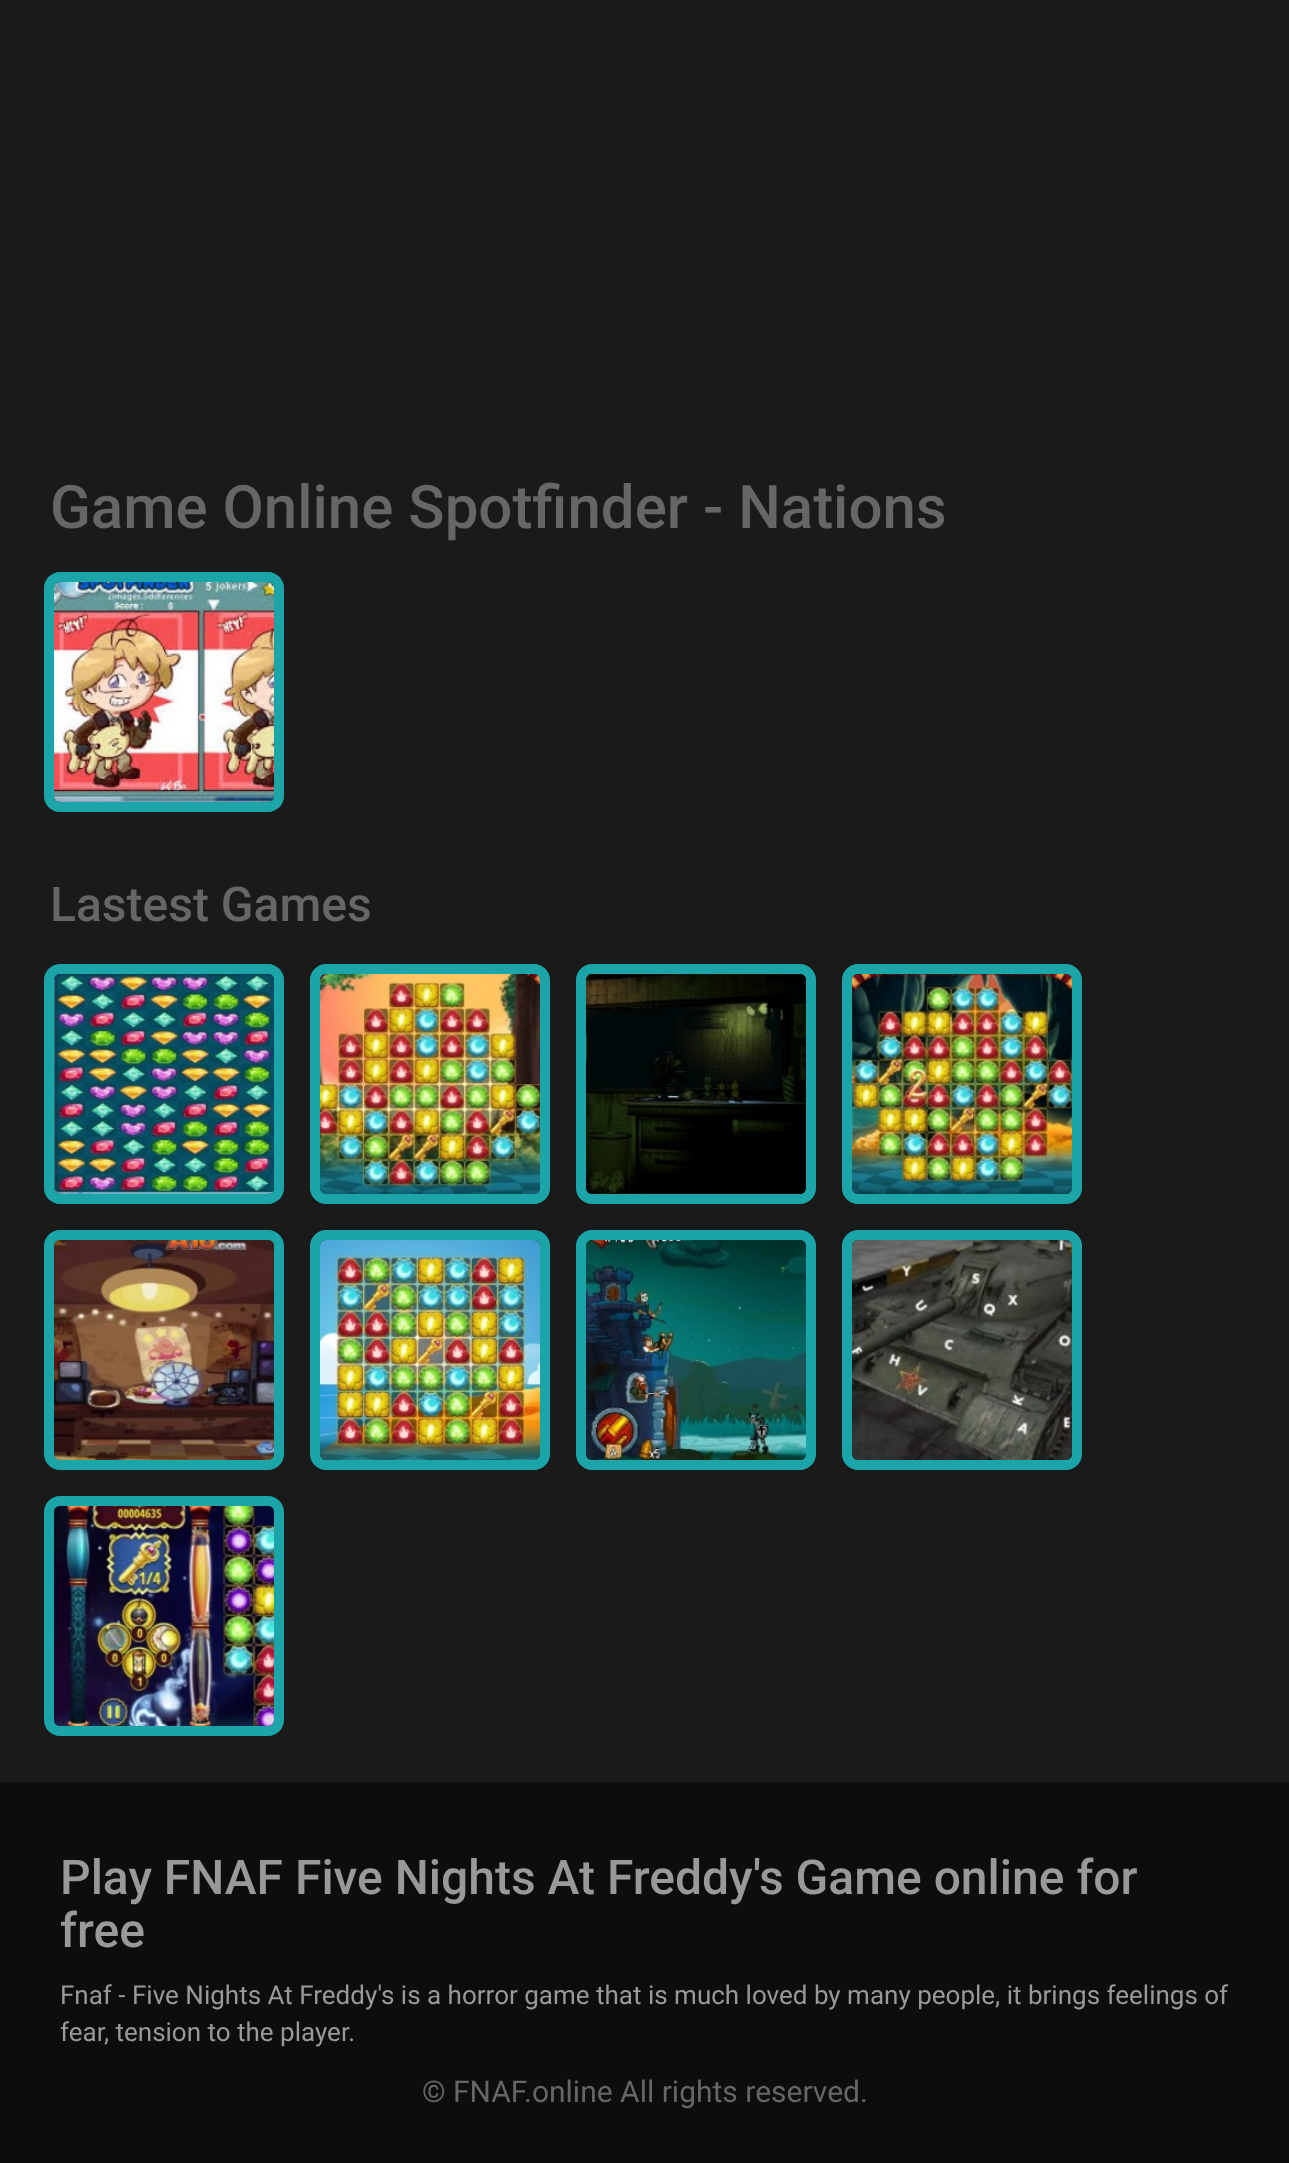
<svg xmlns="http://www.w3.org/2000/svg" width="1289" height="2163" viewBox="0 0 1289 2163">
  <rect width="100%" height="100%" fill="rgb(26,26,26)"/>
  <text x="50" y="528" font-family="Roboto" font-size="60" font-weight="500" fill="rgb(102,102,102)">Game Online Spotfinder - Nations</text>
  <rect x="49" y="577" width="230" height="230" rx="11" fill="none" stroke="rgb(28,165,169)" stroke-width="10"/>
  <image x="54" y="582" width="220" height="220" href="pic1.png"/>
  <text x="50" y="921" font-family="Roboto" font-size="48" font-weight="500" fill="rgb(102,102,102)">Lastest Games</text>
  <rect x="49" y="969" width="230" height="230" rx="11" fill="none" stroke="rgb(28,165,169)" stroke-width="10"/>
  <image x="54" y="974" width="220" height="220" href="pic2.png"/>
  <rect x="315" y="969" width="230" height="230" rx="11" fill="none" stroke="rgb(28,165,169)" stroke-width="10"/>
  <image x="320" y="974" width="220" height="220" href="pic3.png"/>
  <rect x="581" y="969" width="230" height="230" rx="11" fill="none" stroke="rgb(28,165,169)" stroke-width="10"/>
  <image x="586" y="974" width="220" height="220" href="pic4.png"/>
  <rect x="847" y="969" width="230" height="230" rx="11" fill="none" stroke="rgb(28,165,169)" stroke-width="10"/>
  <image x="852" y="974" width="220" height="220" href="pic5.png"/>
  <rect x="49" y="1235" width="230" height="230" rx="11" fill="none" stroke="rgb(28,165,169)" stroke-width="10"/>
  <image x="54" y="1240" width="220" height="220" href="pic6.png"/>
  <rect x="315" y="1235" width="230" height="230" rx="11" fill="none" stroke="rgb(28,165,169)" stroke-width="10"/>
  <image x="320" y="1240" width="220" height="220" href="pic7.png"/>
  <rect x="581" y="1235" width="230" height="230" rx="11" fill="none" stroke="rgb(28,165,169)" stroke-width="10"/>
  <image x="586" y="1240" width="220" height="220" href="pic8.png"/>
  <rect x="847" y="1235" width="230" height="230" rx="11" fill="none" stroke="rgb(28,165,169)" stroke-width="10"/>
  <image x="852" y="1240" width="220" height="220" href="pic9.png"/>
  <rect x="49" y="1501" width="230" height="230" rx="11" fill="none" stroke="rgb(28,165,169)" stroke-width="10"/>
  <image x="54" y="1506" width="220" height="220" href="pic10.png"/>
  <rect x="0" y="1782" width="1289" height="381" fill="rgb(13,13,13)"/>
  <g font-family="Roboto" font-size="48" font-weight="500" fill="rgb(153,153,153)">
    <text>
      <tspan x="60" y="1894">Play FNAF Five Nights At Freddy's Game online for</tspan>
      <tspan x="60" y="1947">free</tspan>
    </text>
  </g>
  <g font-family="Roboto" font-size="26" fill="rgb(153,153,153)">
    <text>
      <tspan x="60" y="2004">Fnaf - Five Nights At Freddy's is a horror game that is much loved by many people, it brings feelings of</tspan>
      <tspan x="60" y="2041">fear, tension to the player.</tspan>
    </text>
  </g>
  <text x="422" y="2102" font-family="Roboto" font-size="30" fill="rgb(102,102,102)">© FNAF.online All rights reserved.</text>
</svg>
